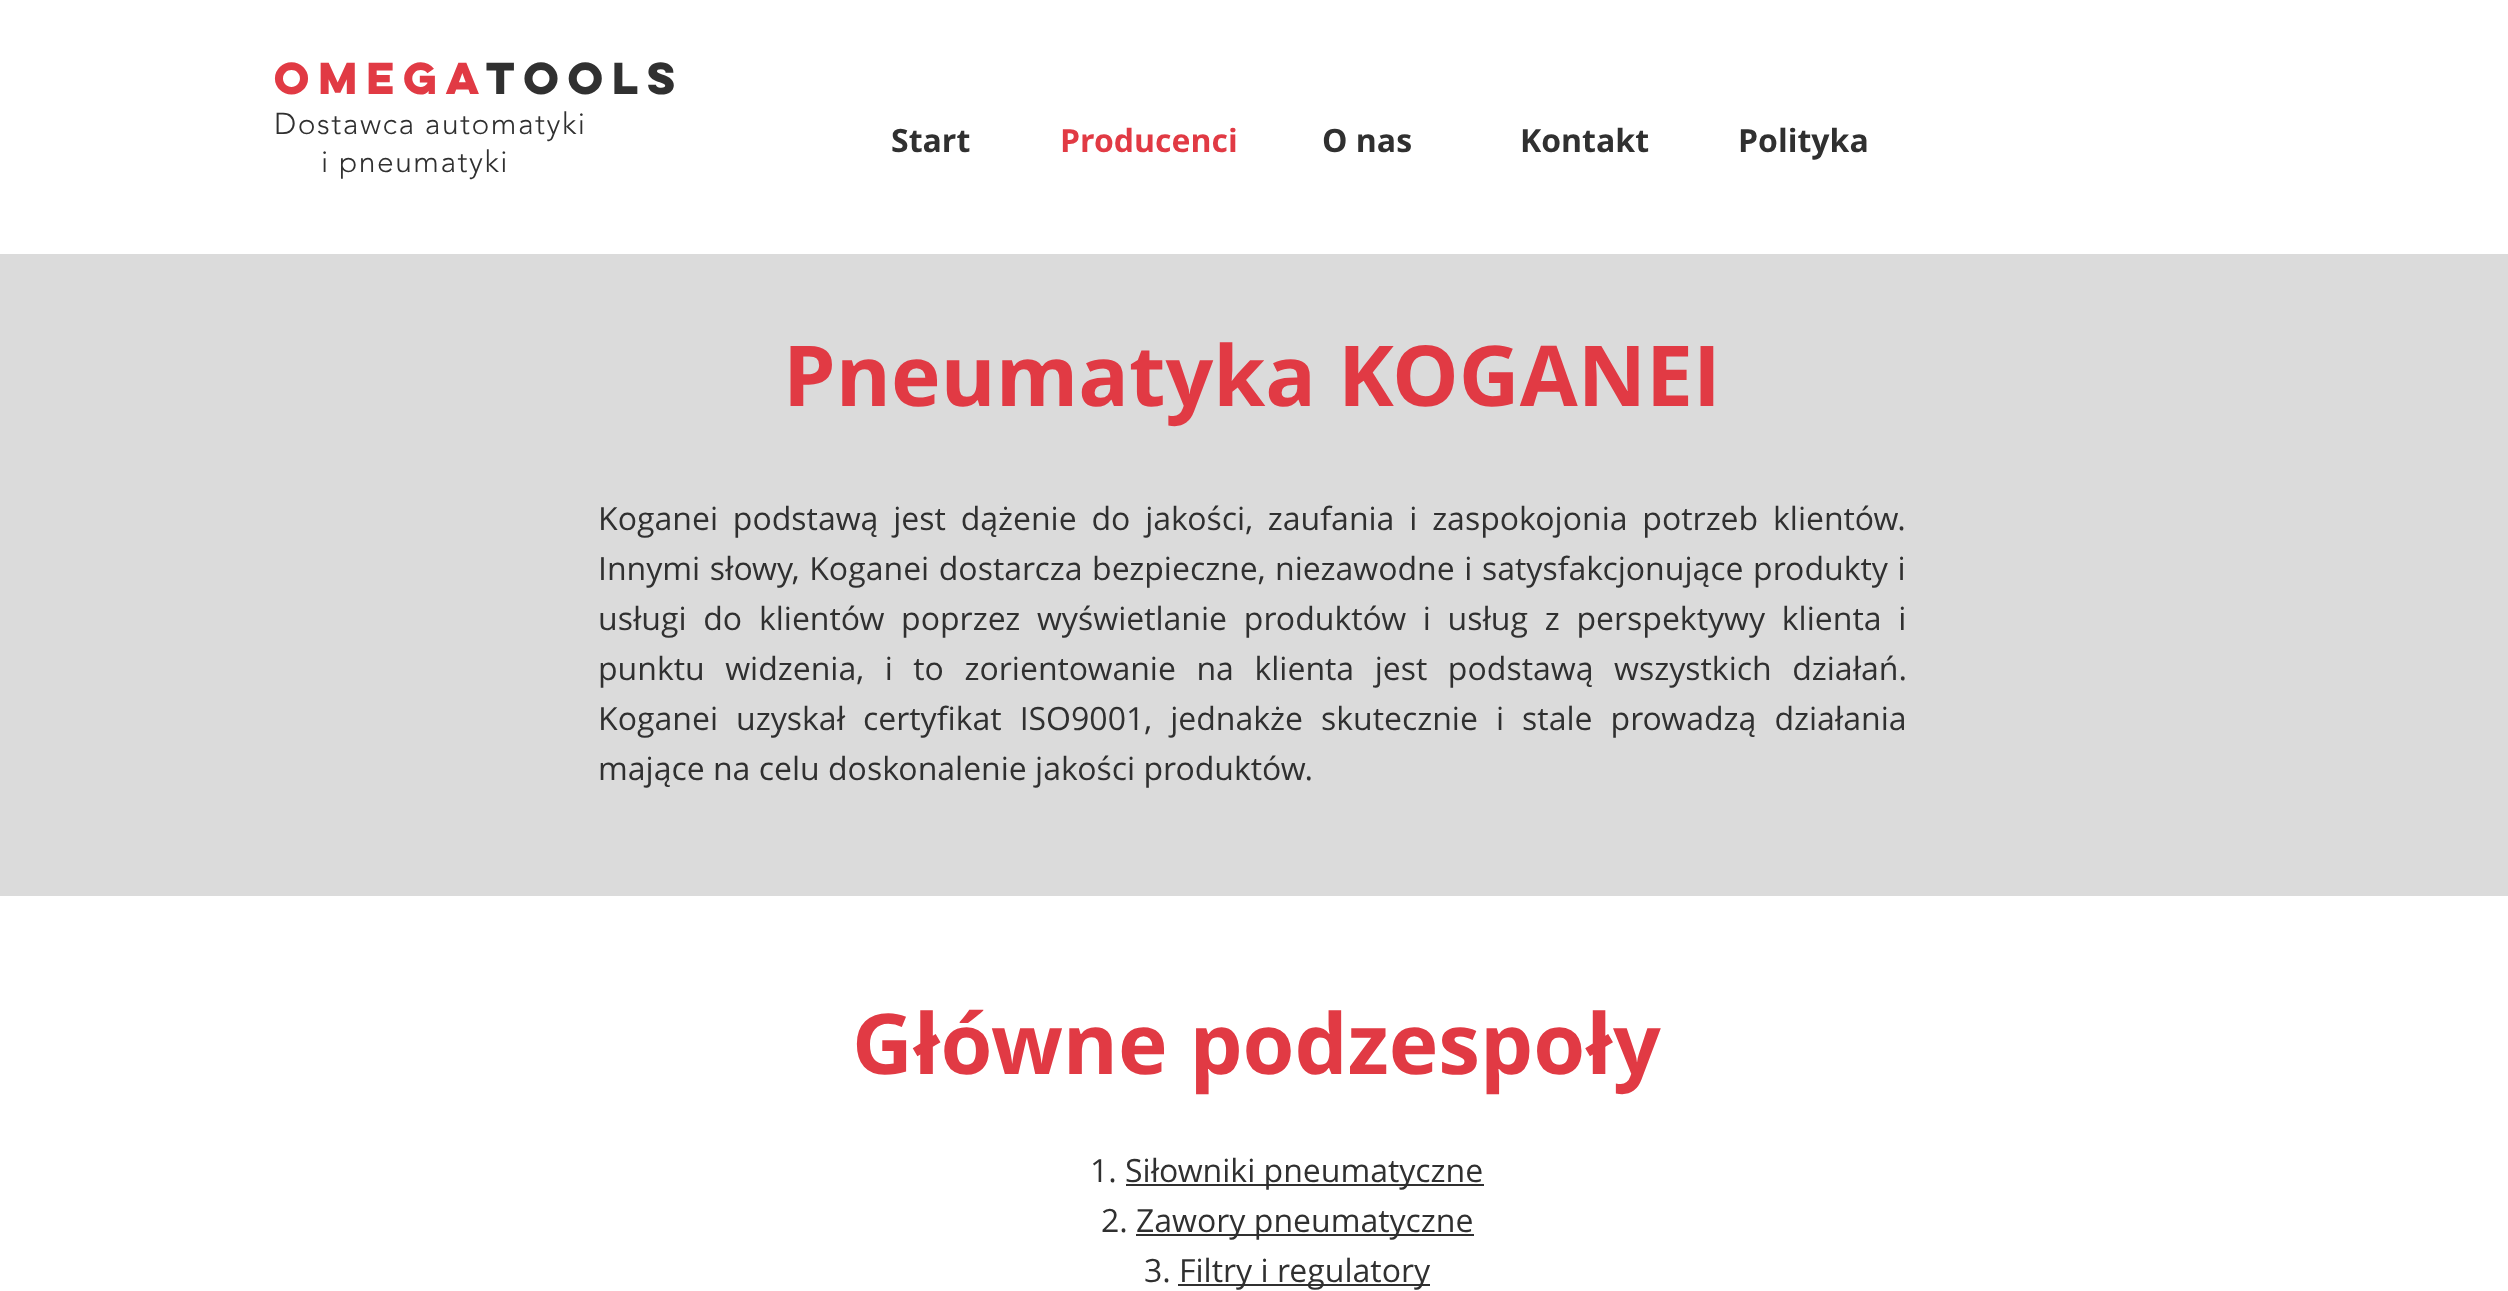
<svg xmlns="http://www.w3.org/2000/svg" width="2508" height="1291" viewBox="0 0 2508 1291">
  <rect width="100%" height="100%" fill="rgb(219,219,219)"/>
  <rect x="0" y="0" width="2508" height="254" fill="rgb(255,255,255)"/>
  <text x="274" y="94" font-family="'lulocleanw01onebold'" font-size="40" font-weight="bold" fill="rgb(225,58,68)">OMEGA</text>
  <text x="486" y="94" font-family="'lulocleanw01onebold'" font-size="40" font-weight="bold" fill="rgb(48,48,48)">TOOLS</text>
  <g font-family="'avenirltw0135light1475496'" font-size="30" font-weight="300" letter-spacing="1.5" fill="rgb(48,48,48)">
    <text x="274" y="134">Dostawca automatyki</text>
    <text x="321" y="172">i pneumatyki</text>
  </g>
  <text x="891" y="152" font-family="Open Sans" font-size="32" font-weight="bold" fill="rgb(48,48,48)">Start</text>
  <text x="1060" y="152" font-family="Open Sans" font-size="32" font-weight="bold" fill="rgb(225,58,68)">Producenci</text>
  <g font-family="Open Sans" font-size="32" font-weight="bold" fill="rgb(48,48,48)">
    <text x="1322" y="152">O nas</text>
    <text x="1520" y="152">Kontakt</text>
    <text x="1738" y="152">Polityka</text>
  </g>
  <text x="783" y="406" font-family="Open Sans" font-size="84" font-weight="bold" fill="rgb(225,58,68)">Pneumatyka KOGANEI</text>
  <g font-family="Open Sans" font-size="32" fill="rgb(48,48,48)">
    <text>
      <tspan x="598" y="530" word-spacing="6.5">Koganei podstawą jest dążenie do jakości, zaufania i zaspokojonia potrzeb klientów.</tspan>
      <tspan x="598" y="580" word-spacing="1.25">Innymi słowy, Koganei dostarcza bezpieczne, niezawodne i satysfakcjonujące produkty i</tspan>
      <tspan x="598" y="630" word-spacing="8.4">usługi do klientów poprzez wyświetlanie produktów i usług z perspektywy klienta i</tspan>
      <tspan x="598" y="680" word-spacing="12.25">punktu widzenia, i to zorientowanie na klienta jest podstawą wszystkich działań.</tspan>
      <tspan x="598" y="730" word-spacing="9.75">Koganei uzyskał certyfikat ISO9001, jednakże skutecznie i stale prowadzą działania</tspan>
      <tspan x="598" y="780">mające na celu doskonalenie jakości produktów.</tspan>
    </text>
  </g>
  <rect x="0" y="896" width="2508" height="395" fill="rgb(255,255,255)"/>
  <text x="852" y="1074" font-family="Open Sans" font-size="84" font-weight="bold" fill="rgb(225,58,68)">Główne podzespoły</text>
  <text x="1090" y="1182" font-family="Open Sans" font-size="32" fill="rgb(48,48,48)">1.</text>
  <rect x="1126" y="1184" width="358" height="2" fill="rgb(48,48,48)"/>
  <g font-family="Open Sans" font-size="32" fill="rgb(48,48,48)">
    <text x="1125" y="1182">Siłowniki pneumatyczne</text>
    <text x="1101" y="1232">2.</text>
  </g>
  <rect x="1136" y="1234" width="338" height="2" fill="rgb(48,48,48)"/>
  <g font-family="Open Sans" font-size="32" fill="rgb(48,48,48)">
    <text x="1136" y="1232">Zawory pneumatyczne</text>
    <text x="1144" y="1282">3.</text>
  </g>
  <rect x="1178" y="1284" width="252" height="2" fill="rgb(48,48,48)"/>
  <text x="1179" y="1282" font-family="Open Sans" font-size="32" fill="rgb(48,48,48)">Filtry i regulatory</text>
</svg>
